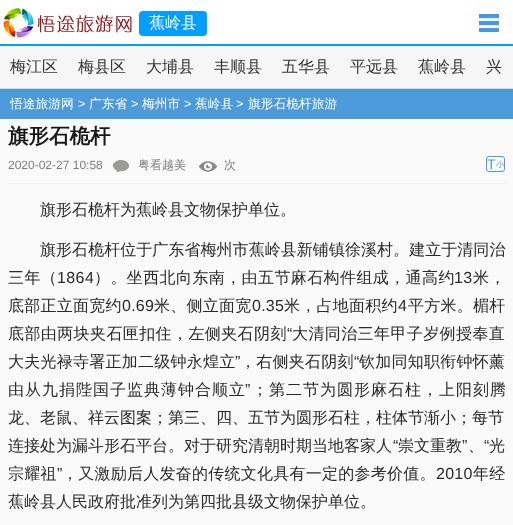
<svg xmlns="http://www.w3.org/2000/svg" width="513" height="525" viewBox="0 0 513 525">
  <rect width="100%" height="100%" fill="rgb(255,255,255)"/>
  <rect x="0" y="44" width="513" height="2" fill="rgb(3,158,255)"/>
  <image x="3" y="8" width="129" height="30" href="pic1.png"/>
  <rect x="139" y="11" width="68" height="25" rx="4" fill="rgb(3,158,255)"/>
  <text x="149" y="28" font-family="WenQuanYi Zen Hei" font-size="16" font-weight="500" fill="rgb(255,255,255)">蕉岭县</text>
  <image x="479" y="14" width="20" height="18" href="pic2.png"/>
  <rect x="0" y="46" width="513" height="42" fill="rgb(246,246,246)"/>
  <rect x="0" y="88" width="513" height="1" fill="rgb(217,217,217)"/>
  <g font-family="WenQuanYi Zen Hei" font-size="16" font-weight="500" fill="rgb(51,51,51)">
    <text x="10" y="72">梅江区</text>
    <text x="78" y="72">梅县区</text>
    <text x="146" y="72">大埔县</text>
    <text x="214" y="72">丰顺县</text>
    <text x="282" y="72">五华县</text>
    <text x="350" y="72">平远县</text>
    <text x="418" y="72">蕉岭县</text>
    <text x="486" y="72">兴</text>
  </g>
  <rect x="0" y="89" width="513" height="30" fill="rgb(76,154,218)"/>
  <text x="10" y="108" font-family="WenQuanYi Zen Hei" font-size="12.75" font-weight="500" fill="rgb(255,255,255)">悟途旅游网</text>
  <text x="78" y="108" font-family="Liberation Sans" font-size="12.75" fill="rgb(255,255,255)">&gt;</text>
  <text x="89" y="108" font-family="WenQuanYi Zen Hei" font-size="12.75" font-weight="500" fill="rgb(255,255,255)">广东省</text>
  <text x="131" y="108" font-family="Liberation Sans" font-size="12.75" fill="rgb(255,255,255)">&gt;</text>
  <text x="142" y="108" font-family="WenQuanYi Zen Hei" font-size="12.75" font-weight="500" fill="rgb(255,255,255)">梅州市</text>
  <text x="184" y="108" font-family="Liberation Sans" font-size="12.75" fill="rgb(255,255,255)">&gt;</text>
  <text x="195" y="108" font-family="WenQuanYi Zen Hei" font-size="12.75" font-weight="500" fill="rgb(255,255,255)">蕉岭县</text>
  <text x="236" y="108" font-family="Liberation Sans" font-size="12.75" fill="rgb(255,255,255)">&gt;</text>
  <text x="248" y="108" font-family="WenQuanYi Zen Hei" font-size="12.75" font-weight="500" fill="rgb(255,255,255)">旗形石桅杆旅游</text>
  <rect x="0" y="119" width="513" height="406" fill="rgb(250,250,250)"/>
  <text x="8" y="143" font-family="WenQuanYi Zen Hei" font-size="20.5" font-weight="bold" fill="rgb(24,24,24)">旗形石桅杆</text>
  <rect x="8" y="183" width="497" height="1" fill="rgb(236,238,240)"/>
  <text x="8" y="169" font-family="Liberation Sans" font-size="12" fill="rgb(126,126,126)">2020-02-27 10:58</text>
  <image x="113" y="160" width="16" height="12" href="pic3.png"/>
  <text x="138" y="169" font-family="WenQuanYi Zen Hei" font-size="12" font-weight="500" fill="rgb(126,126,126)">粤看越美</text>
  <image x="199" y="161" width="18" height="11" href="pic4.png"/>
  <text x="224" y="169" font-family="WenQuanYi Zen Hei" font-size="12" font-weight="500" fill="rgb(126,126,126)">次</text>
  <rect x="486.5" y="156.5" width="18" height="15" rx="2.5" fill="none" stroke="rgb(76,154,218)"/>
  <text x="487" y="169" font-family="Liberation Sans" font-size="14" fill="rgb(76,154,218)">T</text>
  <text x="496" y="167" font-family="WenQuanYi Zen Hei" font-size="8" font-weight="500" fill="rgb(76,154,218)">小</text>
  <text x="40" y="215" font-family="WenQuanYi Zen Hei" font-size="16" font-weight="500" fill="rgb(42,42,42)">旗形石桅杆为蕉岭县文物保护单位。</text>
  <text x="40" y="255" font-family="WenQuanYi Zen Hei" font-size="16" font-weight="500" letter-spacing="0.05" fill="rgb(42,42,42)">旗形石桅杆位于广东省梅州市蕉岭县新铺镇徐溪村。建立于清同治</text>
  <text x="8" y="283" font-family="WenQuanYi Zen Hei" font-size="16" font-weight="500" letter-spacing="0.4" fill="rgb(42,42,42)">三年（</text>
  <text x="57" y="283" font-family="Liberation Sans" font-size="16" letter-spacing="0.4" fill="rgb(42,42,42)">1864</text>
  <text x="94" y="283" font-family="WenQuanYi Zen Hei" font-size="16" font-weight="500" letter-spacing="0.4" fill="rgb(42,42,42)">）。坐西北向东南，由五节麻石构件组成，通高约</text>
  <text x="454" y="283" font-family="Liberation Sans" font-size="16" letter-spacing="0.4" fill="rgb(42,42,42)">13</text>
  <text x="473" y="283" font-family="WenQuanYi Zen Hei" font-size="16" font-weight="500" letter-spacing="0.4" fill="rgb(42,42,42)">米，</text>
  <text x="8" y="311" font-family="WenQuanYi Zen Hei" font-size="16" font-weight="500" letter-spacing="0.25" fill="rgb(42,42,42)">底部正立面宽约</text>
  <text x="122" y="311" font-family="Liberation Sans" font-size="16" letter-spacing="0.25" fill="rgb(42,42,42)">0.69</text>
  <text x="154" y="311" font-family="WenQuanYi Zen Hei" font-size="16" font-weight="500" letter-spacing="0.25" fill="rgb(42,42,42)">米、侧立面宽</text>
  <text x="252" y="311" font-family="Liberation Sans" font-size="16" letter-spacing="0.25" fill="rgb(42,42,42)">0.35</text>
  <text x="284" y="311" font-family="WenQuanYi Zen Hei" font-size="16" font-weight="500" letter-spacing="0.25" fill="rgb(42,42,42)">米，占地面积约</text>
  <text x="398" y="311" font-family="Liberation Sans" font-size="16" letter-spacing="0.25" fill="rgb(42,42,42)">4</text>
  <text x="408" y="311" font-family="WenQuanYi Zen Hei" font-size="16" font-weight="500" letter-spacing="0.25" fill="rgb(42,42,42)">平方米。楣杆</text>
  <text x="8" y="339" font-family="WenQuanYi Zen Hei" font-size="16" font-weight="500" letter-spacing="0.4" fill="rgb(42,42,42)">底部由两块夹石匣扣住，左侧夹石阴刻</text>
  <text x="287" y="339" font-family="Liberation Sans" font-size="16" letter-spacing="0.4" fill="rgb(42,42,42)">“</text>
  <text x="292" y="339" font-family="WenQuanYi Zen Hei" font-size="16" font-weight="500" letter-spacing="0.4" fill="rgb(42,42,42)">大清同治三年甲子岁例授奉直</text>
  <text x="8" y="367" font-family="WenQuanYi Zen Hei" font-size="16" font-weight="500" letter-spacing="0.25" fill="rgb(42,42,42)">大夫光禄寺署正加二级钟永煌立</text>
  <text x="235" y="367" font-family="Liberation Sans" font-size="16" letter-spacing="0.25" fill="rgb(42,42,42)">”</text>
  <text x="240" y="367" font-family="WenQuanYi Zen Hei" font-size="16" font-weight="500" letter-spacing="0.25" fill="rgb(42,42,42)">，右侧夹石阴刻</text>
  <text x="354" y="367" font-family="Liberation Sans" font-size="16" letter-spacing="0.25" fill="rgb(42,42,42)">“</text>
  <text x="359" y="367" font-family="WenQuanYi Zen Hei" font-size="16" font-weight="500" letter-spacing="0.25" fill="rgb(42,42,42)">钦加同知职衔钟怀薰</text>
  <text x="8" y="395" font-family="WenQuanYi Zen Hei" font-size="16" font-weight="500" letter-spacing="1" fill="rgb(42,42,42)">由从九捐陛国子监典薄钟合顺立</text>
  <text x="245" y="395" font-family="Liberation Sans" font-size="16" letter-spacing="1" fill="rgb(42,42,42)">”</text>
  <text x="252" y="395" font-family="WenQuanYi Zen Hei" font-size="16" font-weight="500" letter-spacing="1" fill="rgb(42,42,42)">；第二节为圆形麻石柱，上阳刻腾</text>
  <g font-family="WenQuanYi Zen Hei" font-size="16" font-weight="500" fill="rgb(42,42,42)">
    <text>
      <tspan x="8" y="423">龙、老鼠、祥云图案；第三、四、五节为圆形石柱，柱体节渐小；每节</tspan>
      <tspan x="8" y="451">连接处为漏斗形石平台。对于研究清朝时期当地客家人</tspan>
    </text>
  </g>
  <text x="393" y="451" font-family="Liberation Sans" font-size="16" fill="rgb(42,42,42)">“</text>
  <text x="398" y="451" font-family="WenQuanYi Zen Hei" font-size="16" font-weight="500" fill="rgb(42,42,42)">崇文重教</text>
  <g font-family="Liberation Sans" font-size="16" fill="rgb(42,42,42)">
    <text x="462" y="451">”</text>
    <text x="484" y="451">“</text>
  </g>
  <g font-family="WenQuanYi Zen Hei" font-size="16" font-weight="500" fill="rgb(42,42,42)">
    <text x="489" y="451">光</text>
    <text x="468" y="451">、</text>
  </g>
  <text x="8" y="479" font-family="WenQuanYi Zen Hei" font-size="16" font-weight="500" letter-spacing="0.25" fill="rgb(42,42,42)">宗耀祖</text>
  <text x="57" y="479" font-family="Liberation Sans" font-size="16" letter-spacing="0.25" fill="rgb(42,42,42)">”</text>
  <text x="62" y="479" font-family="WenQuanYi Zen Hei" font-size="16" font-weight="500" letter-spacing="0.25" fill="rgb(42,42,42)">，又激励后人发奋的传统文化具有一定的参考价值。</text>
  <text x="436" y="479" font-family="Liberation Sans" font-size="16" letter-spacing="0.25" fill="rgb(42,42,42)">2010</text>
  <text x="473" y="479" font-family="WenQuanYi Zen Hei" font-size="16" font-weight="500" letter-spacing="0.25" fill="rgb(42,42,42)">年经</text>
  <text x="8" y="507" font-family="WenQuanYi Zen Hei" font-size="16" font-weight="500" fill="rgb(42,42,42)">蕉岭县人民政府批准列为第四批县级文物保护单位。</text>
</svg>
